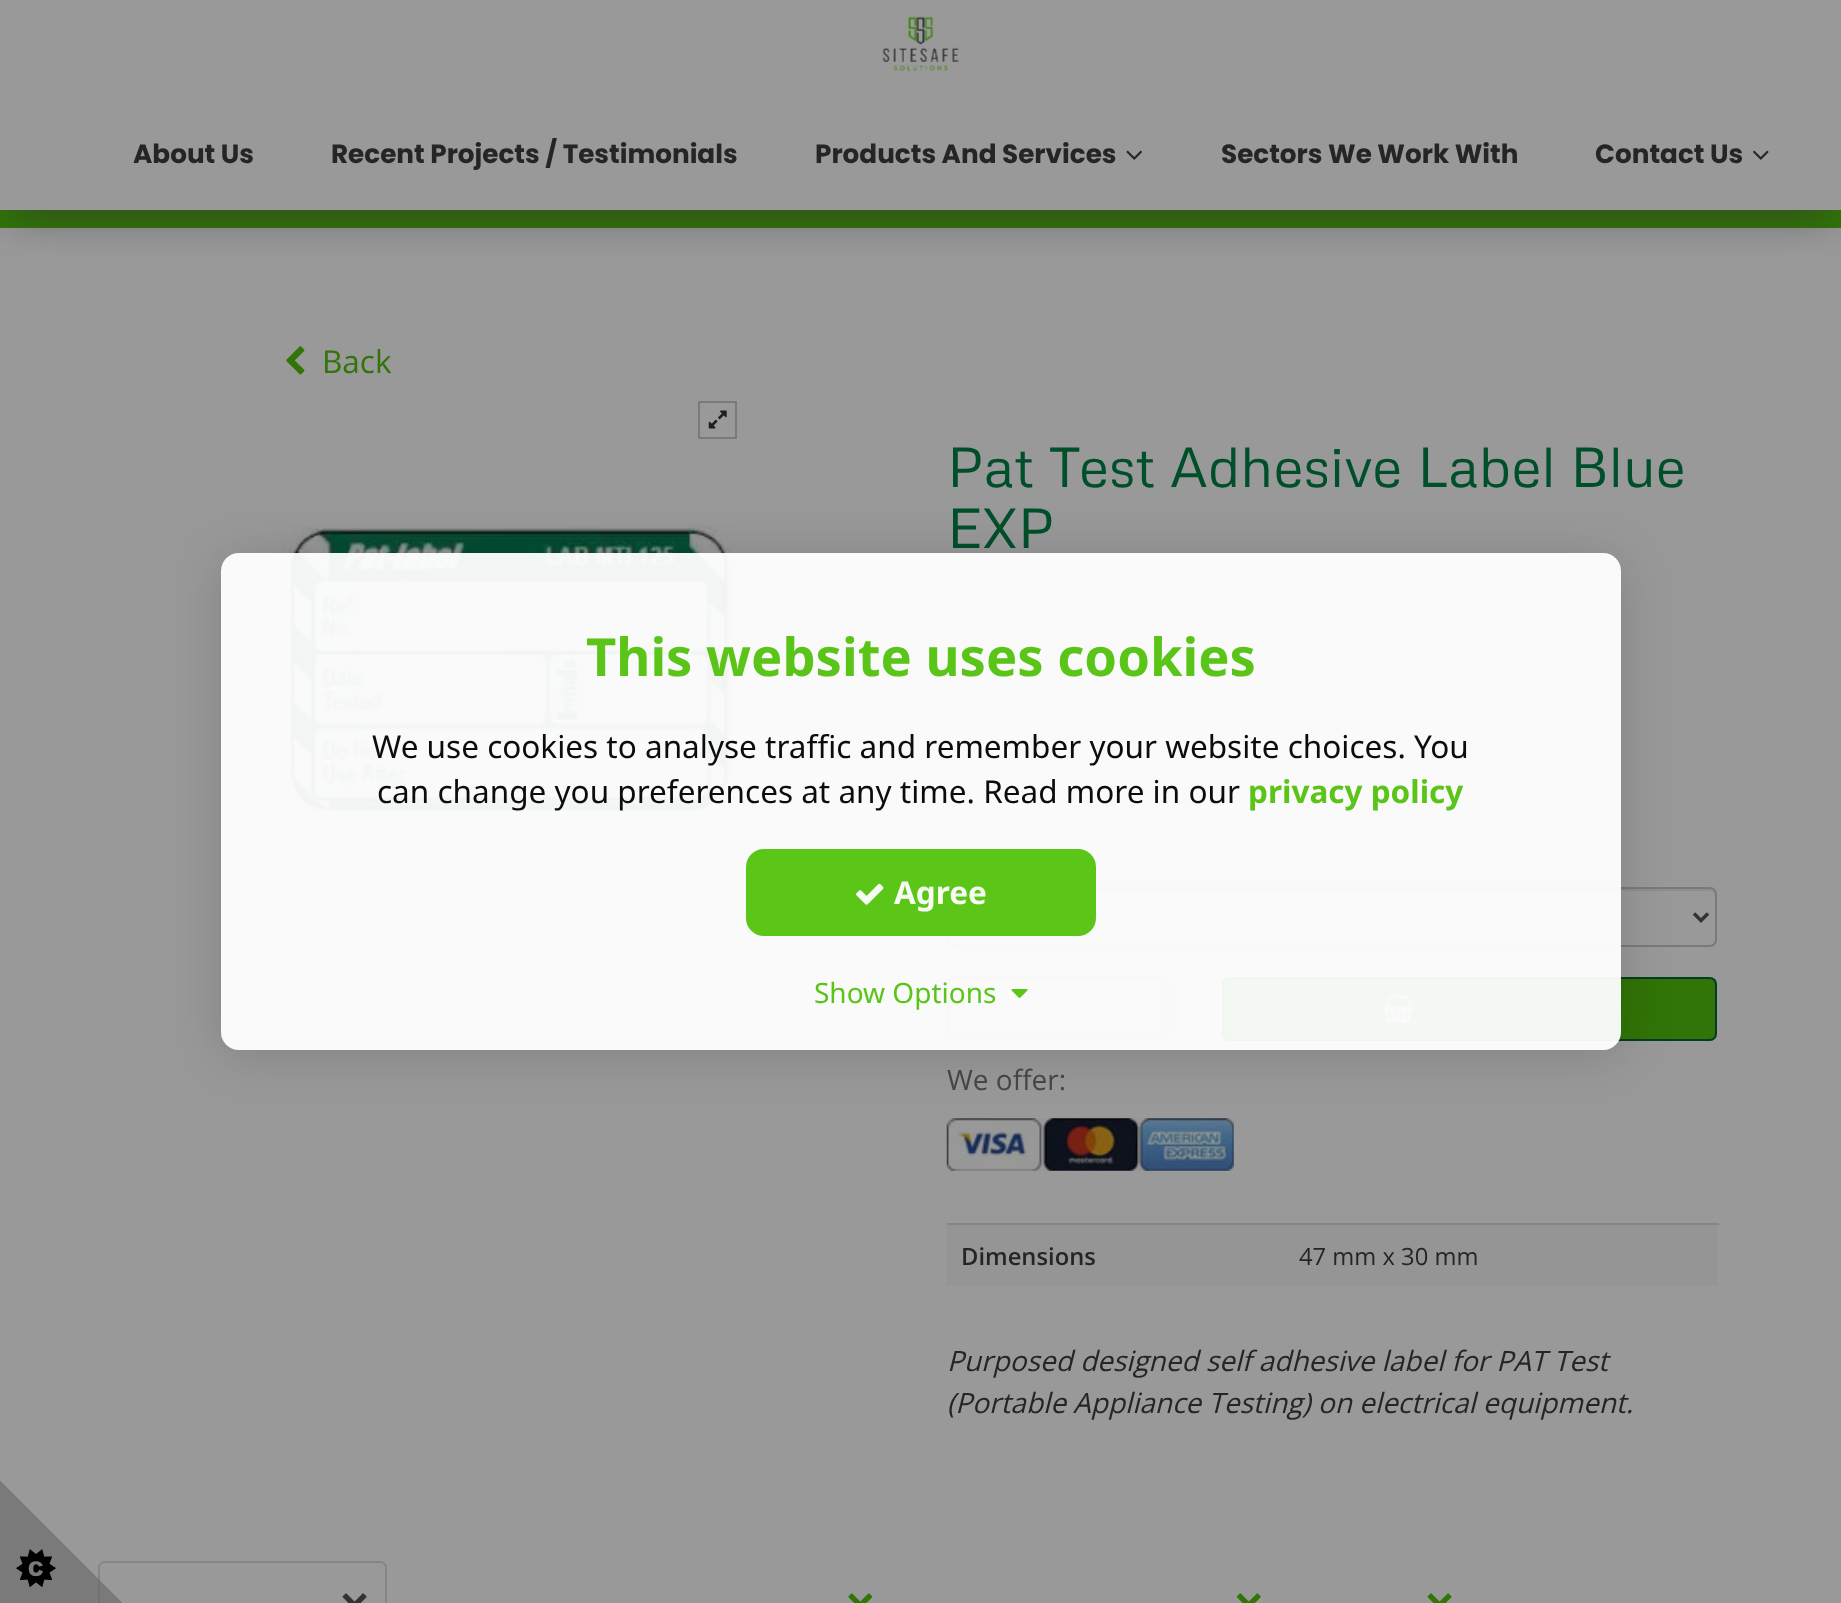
<svg xmlns="http://www.w3.org/2000/svg" width="1841" height="1603" viewBox="0 0 1841 1603">
  <defs>
    <clipPath id="clip1"><rect x="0" y="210" width="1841" height="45"/></clipPath>
    <clipPath id="clip2"><path d="M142 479H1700V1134H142ZM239 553H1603C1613 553 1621 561 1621 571V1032C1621 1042 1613 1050 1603 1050H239C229 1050 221 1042 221 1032V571C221 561 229 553 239 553Z" clip-rule="evenodd"/></clipPath>
    <linearGradient id="g1" gradientUnits="userSpaceOnUse" x1="123" y1="1481" x2="0" y2="1603"><stop offset="0.5" stop-color="rgb(102,102,102)" stop-opacity="0"/><stop offset="0.5" stop-color="rgb(102,102,102)" stop-opacity="0.6"/></linearGradient>
  </defs>
  <rect width="100%" height="100%" fill="rgb(153,153,153)"/>
  <rect x="0" y="210" width="1841" height="18" fill="rgb(49,116,7)"/>
  <g clip-path="url(#clip1)">
    <rect x="11" y="25" width="1820" height="189" fill="rgba(49,49,49,0.62)" filter="blur(22px)"/>
  </g>
  <image x="882" y="16" width="77" height="55" href="pic1.png"/>
  <g font-family="Poppins" font-size="26.25" font-weight="bold" fill="rgb(37,37,37)">
    <text x="133" y="163">About Us</text>
    <text x="331" y="163">Recent Projects / Testimonials</text>
    <text x="815" y="163">Products And Services</text>
  </g>
  <image x="1126" y="150" width="16" height="10" href="pic2.png"/>
  <g font-family="Poppins" font-size="26.25" font-weight="bold" fill="rgb(37,37,37)">
    <text x="1221" y="163">Sectors We Work With</text>
    <text x="1595" y="163">Contact Us</text>
  </g>
  <image x="1753" y="150" width="16" height="10" href="pic3.png"/>
  <image x="286" y="346" width="19" height="29" href="pic4.png"/>
  <text x="322" y="373" font-family="Open Sans" font-size="31.5" fill="rgb(49,116,7)">Back</text>
  <rect x="699" y="402" width="37" height="36" fill="none" stroke="rgb(122,122,122)" stroke-width="2"/>
  <image x="708" y="410" width="19" height="19" href="pic5.png"/>
  <image x="281" y="523" width="453" height="305" href="pic6.png"/>
  <g font-family="Metrophobic" font-size="56" fill="rgb(0,79,43)">
    <text>
      <tspan x="947" y="487">Pat Test Adhesive Label Blue</tspan>
      <tspan x="947" y="548">EXP</tspan>
    </text>
  </g>
  <path d="M954 891H1710C1713 891 1715 893 1715 896V894C1715 891 1713 889 1710 889H954C952 889 949 891 949 893C950 892 952 891 954 891Z" fill="rgb(142,142,142)"/>
  <rect x="948" y="888" width="768" height="58" rx="6" fill="none" stroke="rgb(122,122,122)" stroke-width="2"/>
  <path d="M1694 913.5L1701 920.5L1708 913.5" fill="none" stroke="rgb(51,51,51)" stroke-width="3.5"/>
  <path d="M954 980H1162C1165 980 1167 982 1167 985V983C1167 980 1165 978 1162 978H954C952 978 949 980 949 982C950 981 952 980 954 980Z" fill="rgb(142,142,142)"/>
  <rect x="948" y="978" width="220" height="57" rx="6" fill="none" stroke="rgb(122,122,122)" stroke-width="2"/>
  <rect x="1223" y="978" width="493" height="62" rx="6" fill="rgb(49,116,7)" stroke="rgb(3,61,34)" stroke-width="2"/>
  <image x="1382" y="994" width="33" height="29" href="pic7.png"/>
  <text x="947" y="1090" font-family="Open Sans" font-size="28" fill="rgb(71,71,71)">We offer:</text>
  <image x="946" y="1118" width="288" height="53" href="pic8.png"/>
  <rect x="947" y="1225" width="770" height="61" fill="rgb(149,149,149)"/>
  <text x="961" y="1265" font-family="Open Sans" font-size="23.75" font-weight="600" fill="rgb(37,37,37)">Dimensions</text>
  <rect x="947" y="1223" width="772" height="2" fill="rgb(133,133,133)"/>
  <text x="1299" y="1265" font-family="Open Sans" font-size="23.75" fill="rgb(37,37,37)">47 mm x 30 mm</text>
  <g font-family="Open Sans" font-size="28" font-style="italic" fill="rgb(37,37,37)">
    <text>
      <tspan x="947" y="1371">Purposed designed self adhesive label for PAT Test</tspan>
      <tspan x="947" y="1413">(Portable Appliance Testing) on electrical equipment.</tspan>
    </text>
  </g>
  <path d="M105 1561C103 1561 101 1562 100 1563L101 1564C102 1564 104 1563 105 1563H380C381 1563 383 1563 383 1564L385 1563C384 1562 382 1561 380 1561Z" fill="rgb(133,133,133)"/>
  <path d="M387 1566V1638L385 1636V1567L383 1564L385 1563Z" fill="rgb(133,133,133)"/>
  <path d="M98 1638L100 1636V1567L101 1564L100 1563C99 1564 98 1566 98 1568Z" fill="rgb(133,133,133)"/>
  <image x="342" y="1593" width="25" height="10" href="pic9.png"/>
  <image x="848" y="1593" width="25" height="10" href="pic10.png"/>
  <image x="1236" y="1593" width="25" height="10" href="pic11.png"/>
  <image x="1427" y="1593" width="25" height="10" href="pic12.png"/>
  <g clip-path="url(#clip2)">
    <rect x="221" y="558" width="1400" height="497" rx="18" fill="rgba(0,0,0,0.15)" filter="blur(26px)"/>
  </g>
  <rect x="221" y="553" width="1400" height="497" rx="18" fill="rgba(255,255,255,0.95)"/>
  <text x="586" y="676" font-family="Noto Sans" font-size="52.5" font-weight="bold" fill="rgb(90,197,24)">This website uses cookies</text>
  <g font-family="Noto Sans" font-size="31.5" fill="rgb(12,12,12)">
    <text x="372" y="758">We use cookies to analyse traffic and remember your website choices.</text>
    <text x="1414" y="758">You</text>
    <text x="377" y="803">can change you preferences at any time. Read more in our</text>
  </g>
  <text x="1248" y="803" font-family="Noto Sans" font-size="31.5" font-weight="bold" fill="rgb(90,197,24)">privacy policy</text>
  <rect x="746" y="849" width="350" height="87" rx="18" fill="rgba(82,194,12,0.95)"/>
  <image x="856" y="883" width="28" height="22" href="pic13.png"/>
  <text x="894" y="904" font-family="Noto Sans" font-size="31.5" font-weight="bold" fill="rgb(247,252,243)">Agree</text>
  <text x="814" y="1003" font-family="Noto Sans" font-size="28" fill="rgb(90,197,24)">Show Options</text>
  <image x="1011" y="989" width="17" height="9" href="pic14.png"/>
  <rect x="0" y="1481" width="122" height="122" fill="url(#g1)"/>
  <image x="16" y="1549" width="40" height="39" href="pic15.png"/>
</svg>
